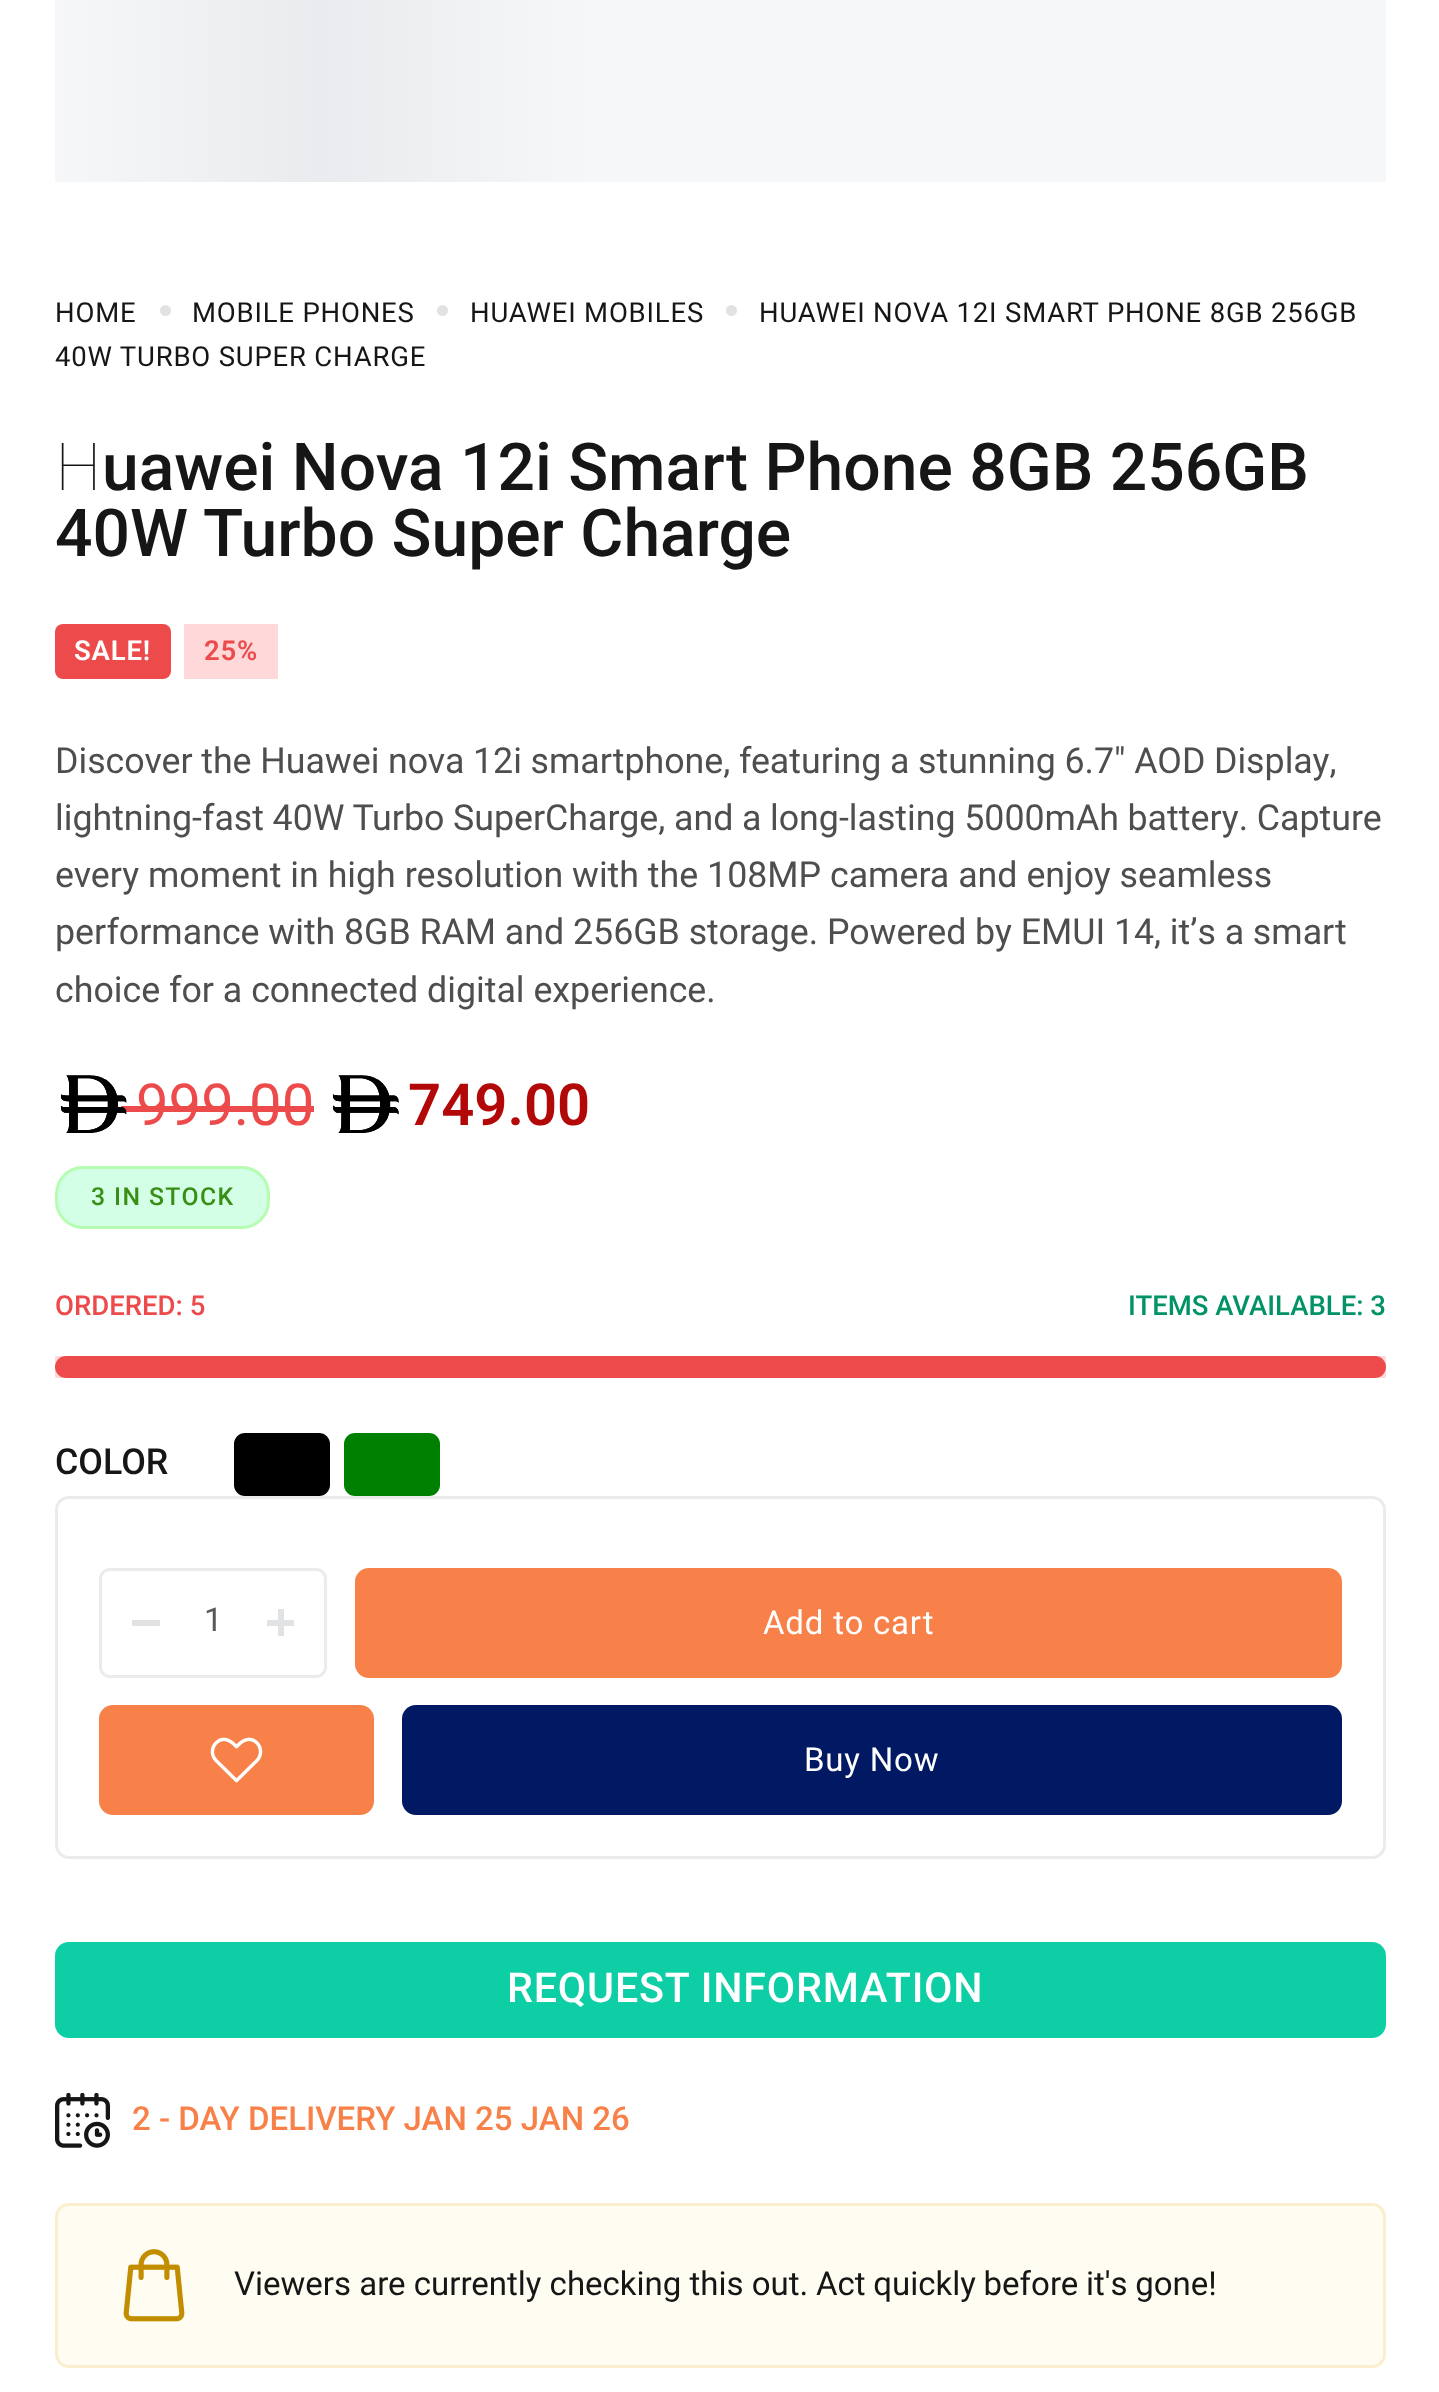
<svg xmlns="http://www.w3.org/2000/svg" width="1439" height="2392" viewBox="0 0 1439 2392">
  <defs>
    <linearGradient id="g1" gradientUnits="userSpaceOnUse" x1="55" y1="-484" x2="1386" y2="-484"><stop offset="0" stop-color="rgb(246,247,249)"/><stop offset="0.2" stop-color="rgb(233,235,238)"/><stop offset="0.4" stop-color="rgb(246,247,249)"/><stop offset="1" stop-color="rgb(246,247,249)"/></linearGradient>
  </defs>
  <rect width="100%" height="100%" fill="rgb(255,255,255)"/>
  <rect x="55" y="0" width="1331" height="182" fill="url(#g1)"/>
  <text x="55" y="322" font-family="Roboto" font-size="27.5" letter-spacing="0.8" fill="rgb(22,22,22)">HOME</text>
  <circle cx="165.5" cy="310.5" r="5.5" fill="rgb(225,226,227)"/>
  <text x="192" y="322" font-family="Roboto" font-size="27.5" letter-spacing="0.8" fill="rgb(22,22,22)">MOBILE PHONES</text>
  <circle cx="442.5" cy="310.5" r="5.5" fill="rgb(225,226,227)"/>
  <text x="470" y="322" font-family="Roboto" font-size="27.5" letter-spacing="0.8" fill="rgb(22,22,22)">HUAWEI MOBILES</text>
  <circle cx="731.5" cy="310.5" r="5.5" fill="rgb(225,226,227)"/>
  <g font-family="Roboto" font-size="27.5" letter-spacing="0.8" fill="rgb(22,22,22)">
    <text x="759" y="322">HUAWEI NOVA 12I SMART PHONE 8GB 256GB</text>
    <text x="55" y="366">40W TURBO SUPER CHARGE</text>
  </g>
  <text x="55" y="490" font-family="Noto Sans" font-size="66" font-weight="100" fill="rgb(22,22,22)">H</text>
  <g font-family="Roboto" font-size="66" font-weight="500" fill="rgb(22,22,22)">
    <text x="102" y="490">uawei Nova 12i Smart Phone 8GB 256GB</text>
    <text x="55" y="556">40W Turbo Super Charge</text>
  </g>
  <rect x="55" y="624" width="116" height="55" rx="8" fill="rgb(237,75,75)"/>
  <text x="74" y="660" font-family="Roboto" font-size="27.5" font-weight="600" letter-spacing="0.8" fill="rgb(255,255,255)">SALE!</text>
  <rect x="184" y="624" width="94" height="55" fill="rgb(255,217,217)"/>
  <text x="204" y="660" font-family="Roboto" font-size="27.5" font-weight="600" letter-spacing="0.8" fill="rgb(237,75,75)">25%</text>
  <g font-family="Roboto" font-size="35.75" fill="rgb(78,78,78)">
    <text>
      <tspan x="55" y="773" word-spacing="-0.25">Discover the Huawei nova 12i smartphone, featuring a stunning 6.7″ AOD Display,</tspan>
      <tspan x="55" y="830" word-spacing="-0.25">lightning-fast 40W Turbo SuperCharge, and a long-lasting 5000mAh battery. Capture</tspan>
      <tspan x="55" y="887">every moment in high resolution with the 108MP camera and enjoy seamless</tspan>
      <tspan x="55" y="944" word-spacing="-0.1">performance with 8GB RAM and 256GB storage. Powered by EMUI 14, it’s a smart</tspan>
      <tspan x="55" y="1002">choice for a connected digital experience.</tspan>
    </text>
  </g>
  <rect x="121" y="1106" width="193" height="6" fill="rgb(237,75,75)"/>
  <image x="61" y="1075" width="66" height="58" href="pic1.png"/>
  <text x="136" y="1125" font-family="Roboto" font-size="58" fill="rgb(237,75,75)">999.00</text>
  <image x="333" y="1075" width="66" height="58" href="pic2.png"/>
  <text x="408" y="1125" font-family="Roboto" font-size="58" font-weight="600" fill="rgb(178,8,8)">749.00</text>
  <rect x="56.5" y="1167.5" width="212" height="60" rx="26.5" fill="rgb(212,255,231)" stroke="rgb(181,253,176)" stroke-width="3"/>
  <text x="91" y="1205" font-family="Roboto" font-size="24.75" font-weight="500" letter-spacing="1.4" fill="rgb(57,143,20)">3 IN STOCK</text>
  <text x="55" y="1315" font-family="Roboto" font-size="27.5" font-weight="500" fill="rgb(237,75,75)">ORDERED: 5</text>
  <text x="1128" y="1315" font-family="Roboto" font-size="27.5" font-weight="500" fill="rgb(1,146,103)">ITEMS AVAILABLE: 3</text>
  <rect x="55" y="1356" width="1331" height="22" rx="1.5" fill="rgb(255,217,217)"/>
  <rect x="55" y="1356" width="1331" height="22" rx="11" fill="rgb(237,75,75)"/>
  <text x="55" y="1474" font-family="Roboto" font-size="35.75" font-weight="500" fill="rgb(22,22,22)">COLOR</text>
  <rect x="234" y="1433" width="96" height="63" rx="11" fill="rgb(0,0,0)"/>
  <rect x="344" y="1433" width="96" height="63" rx="11" fill="rgb(0,128,0)"/>
  <rect x="56.5" y="1497.5" width="1328" height="360" rx="12.5" fill="none" stroke="rgb(234,235,237)" stroke-width="3"/>
  <rect x="100.5" y="1569.5" width="225" height="107" rx="9.5" fill="none" stroke="rgb(234,235,237)" stroke-width="3"/>
  <rect x="132" y="1620" width="28" height="6" fill="rgb(225,226,227)"/>
  <text x="204" y="1631" font-family="Roboto" font-size="33" fill="rgb(89,89,89)">1</text>
  <rect x="278" y="1609" width="6" height="27" fill="rgb(225,226,227)"/>
  <rect x="267" y="1620" width="27" height="6" fill="rgb(225,226,227)"/>
  <rect x="355" y="1568" width="987" height="110" rx="14" fill="rgb(247,129,72)"/>
  <text x="763" y="1634" font-family="Roboto" font-size="33" letter-spacing="0.8" fill="rgb(255,255,255)">Add to cart</text>
  <rect x="99" y="1705" width="275" height="110" rx="14" fill="rgb(247,129,72)"/>
  <image x="210" y="1737" width="53" height="46" href="pic3.png"/>
  <rect x="402" y="1705" width="940" height="110" rx="14" fill="rgb(1,25,98)"/>
  <text x="804" y="1771" font-family="Roboto" font-size="33" letter-spacing="0.8" fill="rgb(255,255,255)">Buy Now</text>
  <rect x="55" y="1942" width="1331" height="96" rx="14" fill="rgb(14,206,166)"/>
  <text x="507" y="2002" font-family="Roboto" font-size="41.25" font-weight="500" letter-spacing="0.8" fill="rgb(255,255,255)">REQUEST INFORMATION</text>
  <image x="55" y="2093" width="55" height="55" href="pic4.png"/>
  <text x="132" y="2130" font-family="Roboto" font-size="33" font-weight="500" fill="rgb(247,129,72)">2 - DAY DELIVERY JAN 25 JAN 26</text>
  <rect x="56.5" y="2204.5" width="1328" height="162" rx="12.5" fill="rgb(255,252,242)" stroke="rgb(250,238,207)" stroke-width="3"/>
  <image x="123" y="2249" width="62" height="73" href="pic5.png"/>
  <g font-family="Roboto" font-size="33" fill="rgb(22,22,22)">
    <text x="234" y="2295">Viewers are currently checking this out.</text>
    <text x="816" y="2295" word-spacing="-0.5">Act quickly before it's gone!</text>
  </g>
</svg>
